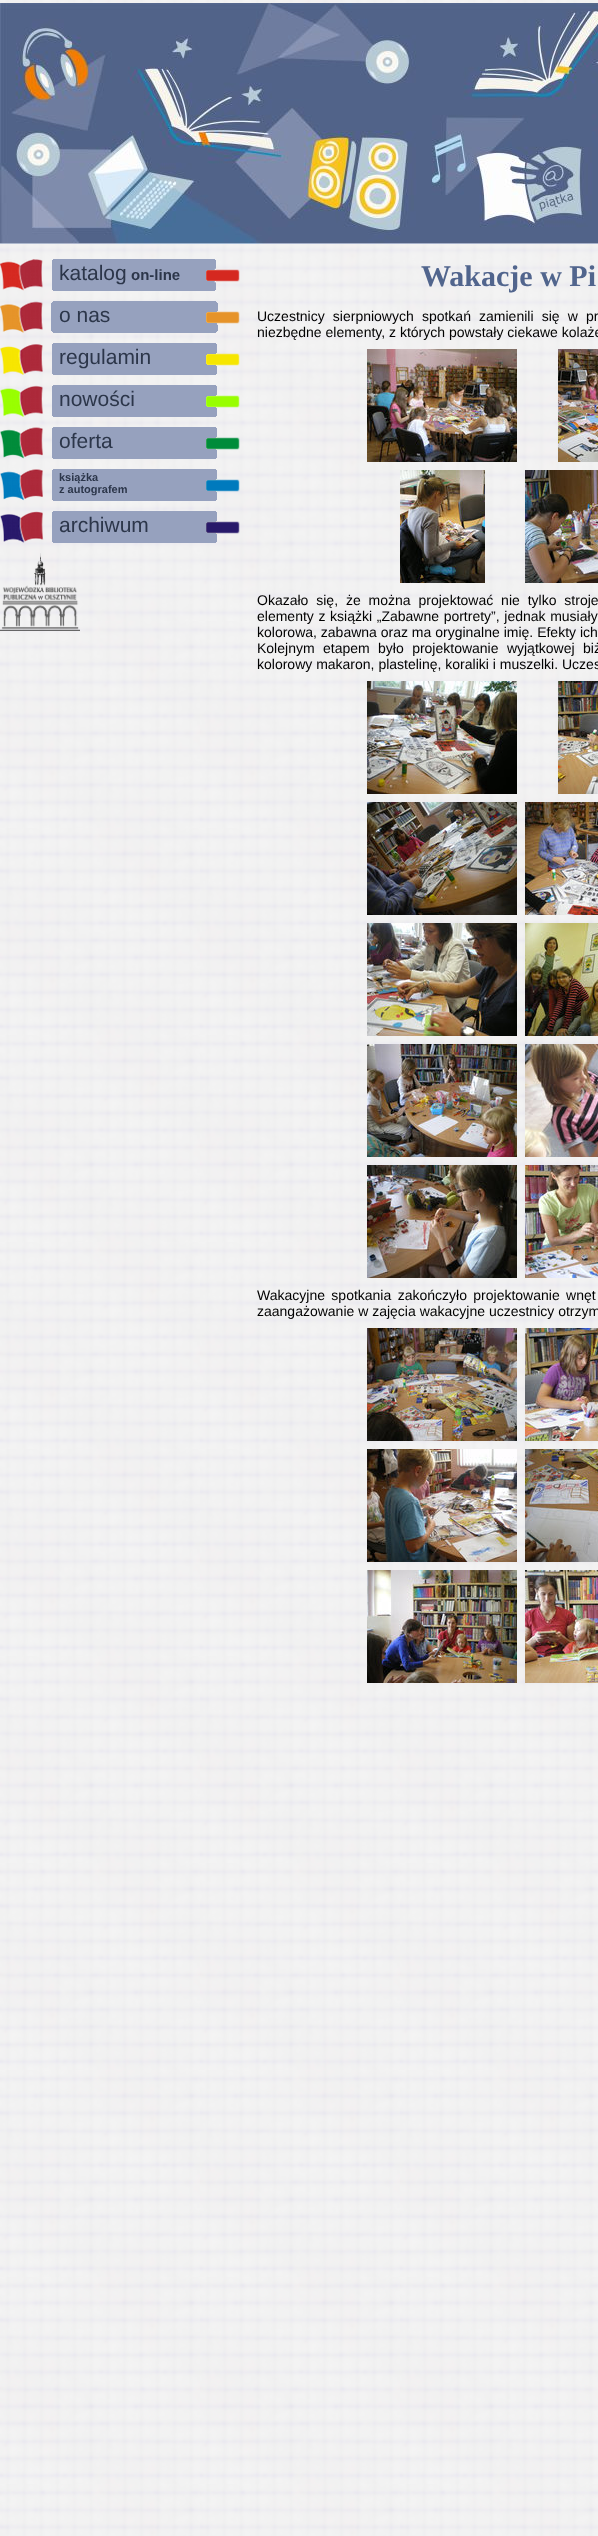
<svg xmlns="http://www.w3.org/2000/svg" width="598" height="2536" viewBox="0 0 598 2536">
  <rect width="100%" height="100%" fill="rgb(255,255,255)"/>
  <image x="0" y="0" width="598" height="2536" href="pic1.png"/>
  <image x="0" y="3" width="598" height="241" href="pic2.png"/>
  <image x="0" y="259" width="56" height="32" href="pic3.png"/>
  <rect x="56" y="259" width="149" height="32" fill="rgb(150,161,190)"/>
  <text x="59" y="280" font-family="Liberation Sans" font-size="21" fill="rgb(44,54,74)">katalog</text>
  <text x="131" y="280" font-family="Liberation Sans" font-size="15" font-weight="bold" fill="rgb(44,54,74)">on-line</text>
  <image x="205" y="259" width="35" height="32" href="pic4.png"/>
  <image x="0" y="301" width="56" height="32" href="pic5.png"/>
  <rect x="56" y="301" width="149" height="32" fill="rgb(150,161,190)"/>
  <text x="59" y="322" font-family="Liberation Sans" font-size="21" fill="rgb(44,54,74)">o nas</text>
  <image x="205" y="301" width="35" height="32" href="pic6.png"/>
  <image x="0" y="343" width="56" height="32" href="pic7.png"/>
  <rect x="56" y="343" width="149" height="32" fill="rgb(150,161,190)"/>
  <text x="59" y="364" font-family="Liberation Sans" font-size="21" fill="rgb(44,54,74)">regulamin</text>
  <image x="205" y="343" width="35" height="32" href="pic8.png"/>
  <image x="0" y="385" width="56" height="32" href="pic9.png"/>
  <rect x="56" y="385" width="149" height="32" fill="rgb(150,161,190)"/>
  <text x="59" y="406" font-family="Liberation Sans" font-size="21" fill="rgb(44,54,74)">nowości</text>
  <image x="205" y="385" width="35" height="32" href="pic10.png"/>
  <image x="0" y="427" width="56" height="32" href="pic11.png"/>
  <rect x="56" y="427" width="149" height="32" fill="rgb(150,161,190)"/>
  <text x="59" y="448" font-family="Liberation Sans" font-size="21" fill="rgb(44,54,74)">oferta</text>
  <image x="205" y="427" width="35" height="32" href="pic12.png"/>
  <image x="0" y="469" width="56" height="32" href="pic13.png"/>
  <rect x="56" y="469" width="149" height="32" fill="rgb(150,161,190)"/>
  <g font-family="Liberation Sans" font-size="11" font-weight="bold" fill="rgb(44,54,74)">
    <text>
      <tspan x="59" y="481">książka</tspan>
      <tspan x="59" y="493">z autografem</tspan>
    </text>
  </g>
  <image x="205" y="469" width="35" height="32" href="pic14.png"/>
  <image x="0" y="511" width="56" height="32" href="pic15.png"/>
  <rect x="56" y="511" width="149" height="32" fill="rgb(150,161,190)"/>
  <text x="59" y="532" font-family="Liberation Sans" font-size="21" fill="rgb(44,54,74)">archiwum</text>
  <image x="205" y="511" width="35" height="32" href="pic16.png"/>
  <image x="0" y="553" width="80" height="78" href="pic17.png"/>
  <text x="421" y="286" font-family="Liberation Serif" font-size="30" font-weight="bold" fill="rgb(81,101,141)">Wakacje w Pi</text>
  <g font-family="Liberation Sans" font-size="14" fill="rgb(0,0,0)">
    <text>
      <tspan x="257" y="321" word-spacing="4.25">Uczestnicy sierpniowych spotkań zamienili się w pr</tspan>
      <tspan x="257" y="337">niezbędne elementy, z których powstały ciekawe kolaże</tspan>
    </text>
  </g>
  <image x="367" y="349" width="150" height="113" href="pic18.png"/>
  <image x="558" y="349" width="40" height="113" href="pic19.png"/>
  <image x="400" y="470" width="85" height="113" href="pic20.png"/>
  <image x="525" y="470" width="73" height="113" href="pic21.png"/>
  <g font-family="Liberation Sans" font-size="14" fill="rgb(0,0,0)">
    <text>
      <tspan x="257" y="605" word-spacing="4">Okazało się, że można projektować nie tylko stroje</tspan>
      <tspan x="257" y="621" word-spacing="0.75">elementy z książki „Zabawne portrety”, jednak musiały</tspan>
      <tspan x="257" y="637">kolorowa, zabawna oraz ma oryginalne imię. Efekty ich</tspan>
      <tspan x="257" y="653" word-spacing="4.5">Kolejnym etapem było projektowanie wyjątkowej biż</tspan>
      <tspan x="257" y="669">kolorowy makaron, plastelinę, koraliki i muszelki. Uczes</tspan>
    </text>
  </g>
  <image x="367" y="681" width="150" height="113" href="pic22.png"/>
  <image x="558" y="681" width="40" height="113" href="pic23.png"/>
  <image x="367" y="802" width="150" height="113" href="pic24.png"/>
  <image x="525" y="802" width="73" height="113" href="pic25.png"/>
  <image x="367" y="923" width="150" height="113" href="pic26.png"/>
  <image x="525" y="923" width="73" height="113" href="pic27.png"/>
  <image x="367" y="1044" width="150" height="113" href="pic28.png"/>
  <image x="525" y="1044" width="73" height="113" href="pic29.png"/>
  <image x="367" y="1165" width="150" height="113" href="pic30.png"/>
  <image x="525" y="1165" width="73" height="113" href="pic31.png"/>
  <g font-family="Liberation Sans" font-size="14" fill="rgb(0,0,0)">
    <text>
      <tspan x="257" y="1300" word-spacing="2.5">Wakacyjne spotkania zakończyło projektowanie wnęt</tspan>
      <tspan x="257" y="1316">zaangażowanie w zajęcia wakacyjne uczestnicy otrzym</tspan>
    </text>
  </g>
  <image x="367" y="1328" width="150" height="113" href="pic32.png"/>
  <image x="525" y="1328" width="73" height="113" href="pic33.png"/>
  <image x="367" y="1449" width="150" height="113" href="pic34.png"/>
  <image x="525" y="1449" width="73" height="113" href="pic35.png"/>
  <image x="367" y="1570" width="150" height="113" href="pic36.png"/>
  <image x="525" y="1570" width="73" height="113" href="pic37.png"/>
</svg>
